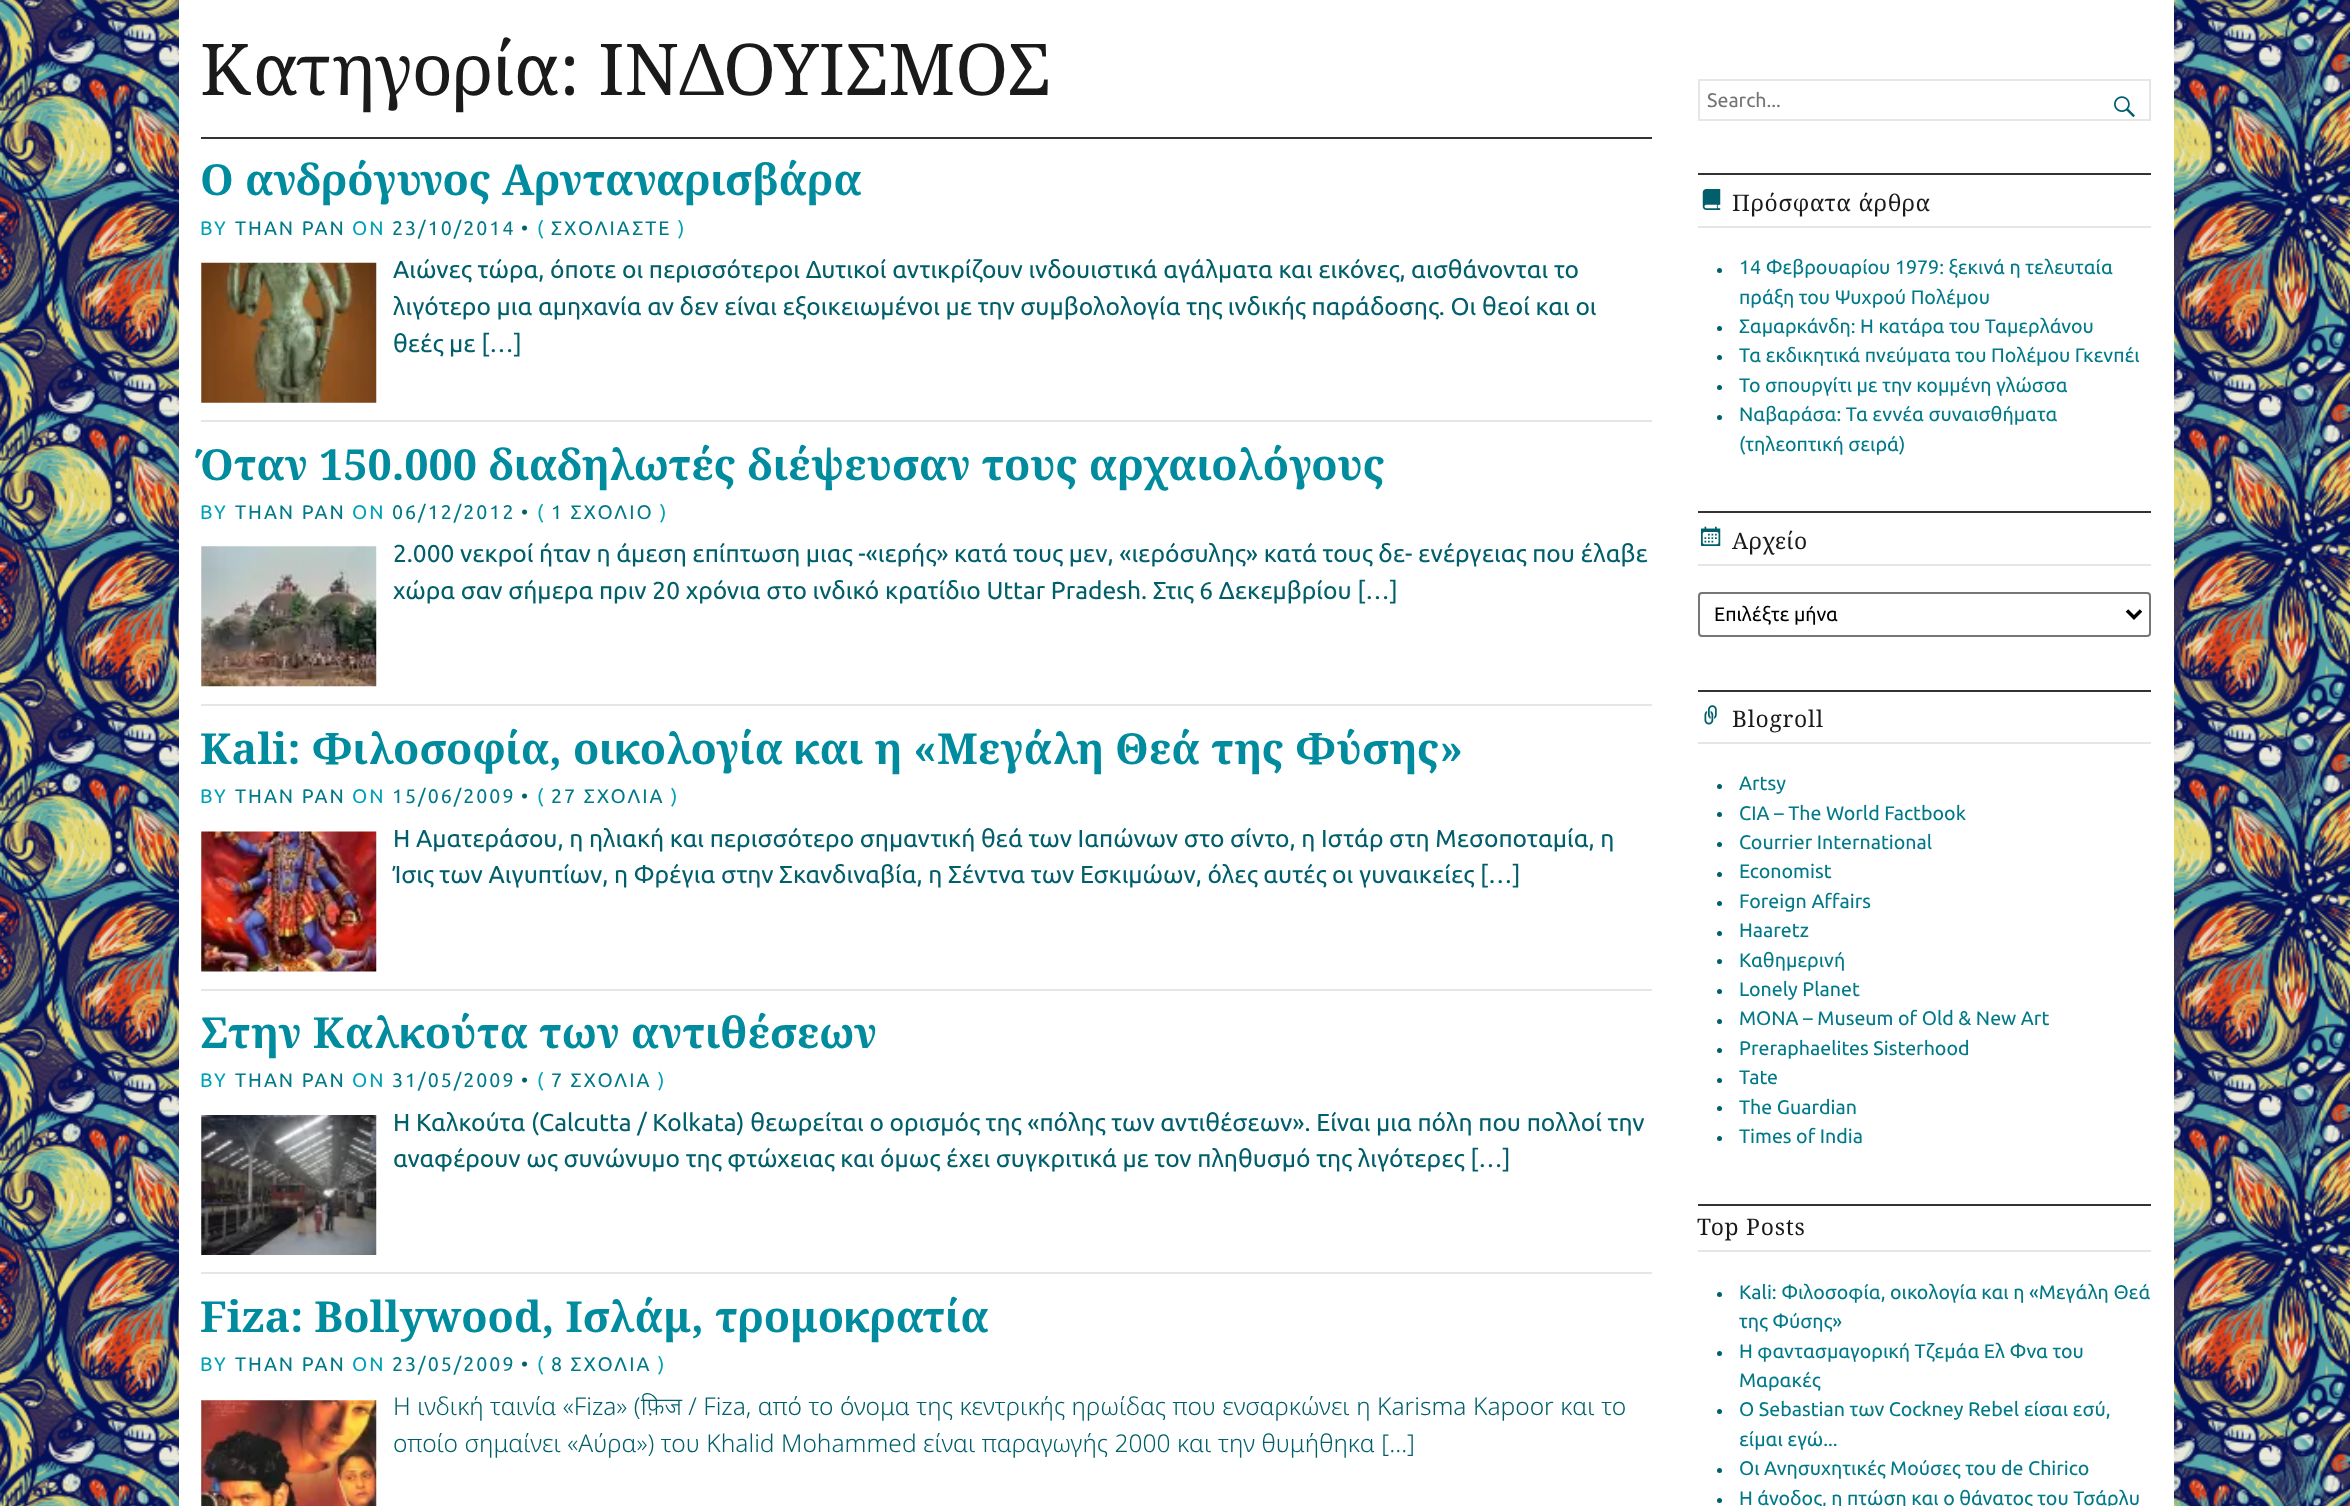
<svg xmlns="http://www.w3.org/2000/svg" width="2350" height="1506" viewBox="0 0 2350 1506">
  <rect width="100%" height="100%" fill="rgb(255,255,255)"/>
  <image x="0" y="0" width="2350" height="1506" href="pic1.png"/>
  <rect x="179" y="0" width="1995" height="1506" fill="rgb(255,255,255)"/>
  <text x="200" y="95" font-family="Noto Serif" font-size="71.5" fill="rgb(26,26,26)">Κατηγορία: ΙΝΔΟΥΙΣΜΟΣ</text>
  <rect x="201" y="137" width="1451" height="2" fill="rgb(51,51,51)"/>
  <rect x="201" y="420" width="1451" height="2" fill="rgb(230,230,230)"/>
  <text x="200" y="195" font-family="Noto Serif" font-size="42.9" font-weight="bold" fill="rgb(0,140,158)">Ο ανδρόγυνος Αρνταναρισβάρα</text>
  <text x="200" y="235" font-family="Ubuntu" font-size="19.6" letter-spacing="2" fill="rgb(0,162,183)">BY</text>
  <text x="235" y="235" font-family="Ubuntu" font-size="19.6" letter-spacing="2" fill="rgb(0,121,137)">THAN PAN</text>
  <text x="352" y="235" font-family="Ubuntu" font-size="19.6" letter-spacing="2" fill="rgb(0,162,183)">ON</text>
  <text x="392" y="235" font-family="Ubuntu" font-size="19.6" letter-spacing="2" fill="rgb(0,121,137)">23/10/2014</text>
  <text x="521" y="235" font-family="Ubuntu" font-size="19.6" letter-spacing="2" fill="rgb(0,95,107)">•</text>
  <text x="537" y="235" font-family="Ubuntu" font-size="19.6" letter-spacing="2" fill="rgb(0,162,183)">(</text>
  <text x="551" y="235" font-family="Ubuntu" font-size="19.6" letter-spacing="2" fill="rgb(0,121,137)">ΣΧΟΛΙΑΣΤΕ</text>
  <text x="678" y="235" font-family="Ubuntu" font-size="19.6" letter-spacing="2" fill="rgb(0,162,183)">)</text>
  <image x="201" y="262" width="176" height="141" href="pic2.png"/>
  <g font-family="Ubuntu" font-size="24.5" fill="rgb(0,95,107)">
    <text>
      <tspan x="393" y="278">Αιώνες τώρα, όποτε οι περισσότεροι Δυτικοί αντικρίζουν ινδουιστικά αγάλματα και εικόνες, αισθάνονται το</tspan>
      <tspan x="393" y="315">λιγότερο μια αμηχανία αν δεν είναι εξοικειωμένοι με την συμβολολογία της ινδικής παράδοσης. Οι θεοί και οι</tspan>
      <tspan x="393" y="352">θεές με […]</tspan>
    </text>
  </g>
  <rect x="201" y="704" width="1451" height="2" fill="rgb(230,230,230)"/>
  <text x="200" y="480" font-family="Noto Serif" font-size="42.9" font-weight="bold" fill="rgb(0,140,158)">Όταν 150.000 διαδηλωτές διέψευσαν τους αρχαιολόγους</text>
  <text x="200" y="519" font-family="Ubuntu" font-size="19.6" letter-spacing="2" fill="rgb(0,162,183)">BY</text>
  <text x="235" y="519" font-family="Ubuntu" font-size="19.6" letter-spacing="2" fill="rgb(0,121,137)">THAN PAN</text>
  <text x="352" y="519" font-family="Ubuntu" font-size="19.6" letter-spacing="2" fill="rgb(0,162,183)">ON</text>
  <text x="392" y="519" font-family="Ubuntu" font-size="19.6" letter-spacing="2" fill="rgb(0,121,137)">06/12/2012</text>
  <text x="521" y="519" font-family="Ubuntu" font-size="19.6" letter-spacing="2" fill="rgb(0,95,107)">•</text>
  <text x="537" y="519" font-family="Ubuntu" font-size="19.6" letter-spacing="2" fill="rgb(0,162,183)">(</text>
  <text x="551" y="519" font-family="Ubuntu" font-size="19.6" letter-spacing="2" fill="rgb(0,121,137)">1 ΣΧΟΛΙΟ</text>
  <text x="660" y="519" font-family="Ubuntu" font-size="19.6" letter-spacing="2" fill="rgb(0,162,183)">)</text>
  <image x="201" y="546" width="176" height="141" href="pic3.png"/>
  <g font-family="Ubuntu" font-size="24.5" fill="rgb(0,95,107)">
    <text>
      <tspan x="393" y="562">2.000 νεκροί ήταν η άμεση επίπτωση μιας -«ιερής» κατά τους μεν, «ιερόσυλης» κατά τους δε- ενέργειας που έλαβε</tspan>
      <tspan x="393" y="599">χώρα σαν σήμερα πριν 20 χρόνια στο ινδικό κρατίδιο Uttar Pradesh. Στις 6 Δεκεμβρίου […]</tspan>
    </text>
  </g>
  <rect x="201" y="989" width="1451" height="2" fill="rgb(230,230,230)"/>
  <text x="200" y="764" font-family="Noto Serif" font-size="42.9" font-weight="bold" fill="rgb(0,140,158)">Kali: Φιλοσοφία, οικολογία και η «Μεγάλη Θεά της Φύσης»</text>
  <text x="200" y="803" font-family="Ubuntu" font-size="19.6" letter-spacing="2" fill="rgb(0,162,183)">BY</text>
  <text x="235" y="803" font-family="Ubuntu" font-size="19.6" letter-spacing="2" fill="rgb(0,121,137)">THAN PAN</text>
  <text x="352" y="803" font-family="Ubuntu" font-size="19.6" letter-spacing="2" fill="rgb(0,162,183)">ON</text>
  <text x="392" y="803" font-family="Ubuntu" font-size="19.6" letter-spacing="2" fill="rgb(0,121,137)">15/06/2009</text>
  <text x="521" y="803" font-family="Ubuntu" font-size="19.6" letter-spacing="2" fill="rgb(0,95,107)">•</text>
  <text x="537" y="803" font-family="Ubuntu" font-size="19.6" letter-spacing="2" fill="rgb(0,162,183)">(</text>
  <text x="551" y="803" font-family="Ubuntu" font-size="19.6" letter-spacing="2" fill="rgb(0,121,137)">27 ΣΧΟΛΙΑ</text>
  <text x="671" y="803" font-family="Ubuntu" font-size="19.6" letter-spacing="2" fill="rgb(0,162,183)">)</text>
  <image x="201" y="831" width="176" height="141" href="pic4.png"/>
  <g font-family="Ubuntu" font-size="24.5" fill="rgb(0,95,107)">
    <text>
      <tspan x="393" y="847">Η Αματεράσου, η ηλιακή και περισσότερο σημαντική θεά των Ιαπώνων στο σίντο, η Ιστάρ στη Μεσοποταμία, η</tspan>
      <tspan x="393" y="883">Ίσις των Αιγυπτίων, η Φρέγια στην Σκανδιναβία, η Σέντνα των Εσκιμώων, όλες αυτές οι γυναικείες […]</tspan>
    </text>
  </g>
  <rect x="201" y="1272" width="1451" height="2" fill="rgb(230,230,230)"/>
  <text x="200" y="1048" font-family="Noto Serif" font-size="42.9" font-weight="bold" fill="rgb(0,140,158)">Στην Καλκούτα των αντιθέσεων</text>
  <text x="200" y="1087" font-family="Ubuntu" font-size="19.6" letter-spacing="2" fill="rgb(0,162,183)">BY</text>
  <text x="235" y="1087" font-family="Ubuntu" font-size="19.6" letter-spacing="2" fill="rgb(0,121,137)">THAN PAN</text>
  <text x="352" y="1087" font-family="Ubuntu" font-size="19.6" letter-spacing="2" fill="rgb(0,162,183)">ON</text>
  <text x="392" y="1087" font-family="Ubuntu" font-size="19.6" letter-spacing="2" fill="rgb(0,121,137)">31/05/2009</text>
  <text x="521" y="1087" font-family="Ubuntu" font-size="19.6" letter-spacing="2" fill="rgb(0,95,107)">•</text>
  <text x="537" y="1087" font-family="Ubuntu" font-size="19.6" letter-spacing="2" fill="rgb(0,162,183)">(</text>
  <text x="551" y="1087" font-family="Ubuntu" font-size="19.6" letter-spacing="2" fill="rgb(0,121,137)">7 ΣΧΟΛΙΑ</text>
  <text x="658" y="1087" font-family="Ubuntu" font-size="19.6" letter-spacing="2" fill="rgb(0,162,183)">)</text>
  <image x="201" y="1115" width="176" height="140" href="pic5.png"/>
  <g font-family="Ubuntu" font-size="24.5" fill="rgb(0,95,107)">
    <text>
      <tspan x="393" y="1131">Η Καλκούτα (Calcutta / Kolkata) θεωρείται ο ορισμός της «πόλης των αντιθέσεων». Είναι μια πόλη που πολλοί την</tspan>
      <tspan x="393" y="1167">αναφέρουν ως συνώνυμο της φτώχειας και όμως έχει συγκριτικά με τον πληθυσμό της λιγότερες […]</tspan>
    </text>
  </g>
  <text x="200" y="1332" font-family="Noto Serif" font-size="42.9" font-weight="bold" fill="rgb(0,140,158)">Fiza: Bollywood, Ισλάμ, τρομοκρατία</text>
  <text x="200" y="1371" font-family="Ubuntu" font-size="19.6" letter-spacing="2" fill="rgb(0,162,183)">BY</text>
  <text x="235" y="1371" font-family="Ubuntu" font-size="19.6" letter-spacing="2" fill="rgb(0,121,137)">THAN PAN</text>
  <text x="352" y="1371" font-family="Ubuntu" font-size="19.6" letter-spacing="2" fill="rgb(0,162,183)">ON</text>
  <text x="392" y="1371" font-family="Ubuntu" font-size="19.6" letter-spacing="2" fill="rgb(0,121,137)">23/05/2009</text>
  <text x="521" y="1371" font-family="Ubuntu" font-size="19.6" letter-spacing="2" fill="rgb(0,95,107)">•</text>
  <text x="537" y="1371" font-family="Ubuntu" font-size="19.6" letter-spacing="2" fill="rgb(0,162,183)">(</text>
  <text x="551" y="1371" font-family="Ubuntu" font-size="19.6" letter-spacing="2" fill="rgb(0,121,137)">8 ΣΧΟΛΙΑ</text>
  <text x="658" y="1371" font-family="Ubuntu" font-size="19.6" letter-spacing="2" fill="rgb(0,162,183)">)</text>
  <image x="201" y="1400" width="176" height="106" href="pic6.png"/>
  <g font-family="Noto Sans" font-size="24.5" font-weight="300" fill="rgb(0,95,107)">
    <text>
      <tspan x="393" y="1415" word-spacing="0.1">Η ινδική ταινία «Fiza» (फ़िज / Fiza, από το όνομα της κεντρικής ηρωίδας που ενσαρκώνει η Karisma Kapoor και το</tspan>
      <tspan x="393" y="1452" word-spacing="0.1">οποίο σημαίνει «Αύρα») του Khalid Mohammed είναι παραγωγής 2000 και την θυμήθηκα […]</tspan>
    </text>
  </g>
  <rect x="1699" y="80" width="451" height="40" fill="none" stroke="rgb(230,230,230)" stroke-width="2"/>
  <text x="1707" y="107" font-family="Ubuntu" font-size="19.6" fill="rgb(117,117,117)">Search...</text>
  <image x="2114" y="96" width="21" height="22" href="pic7.png"/>
  <rect x="1698" y="173" width="453" height="2" fill="rgb(51,51,51)"/>
  <rect x="1698" y="226" width="453" height="2" fill="rgb(230,230,230)"/>
  <image x="1702" y="189" width="19" height="21" href="pic8.png"/>
  <text x="1732" y="211" font-family="Noto Serif" font-size="22.9" letter-spacing="0.75" fill="rgb(26,26,26)">Πρόσφατα άρθρα</text>
  <circle cx="1719.5" cy="270.5" r="2.5" fill="rgb(0,95,107)"/>
  <g font-family="Ubuntu" font-size="19.6" fill="rgb(0,121,137)">
    <text>
      <tspan x="1739" y="274">14 Φεβρουαρίου 1979: ξεκινά η τελευταία</tspan>
      <tspan x="1739" y="304">πράξη του Ψυχρού Πολέμου</tspan>
    </text>
  </g>
  <circle cx="1719.5" cy="328.5" r="2.5" fill="rgb(0,95,107)"/>
  <text x="1739" y="333" font-family="Ubuntu" font-size="19.6" fill="rgb(0,121,137)">Σαμαρκάνδη: Η κατάρα του Ταμερλάνου</text>
  <circle cx="1719.5" cy="357.5" r="2.5" fill="rgb(0,95,107)"/>
  <text x="1739" y="362" font-family="Ubuntu" font-size="19.6" fill="rgb(0,121,137)">Τα εκδικητικά πνεύματα του Πολέμου Γκενπέι</text>
  <circle cx="1719.5" cy="387.5" r="2.5" fill="rgb(0,95,107)"/>
  <text x="1739" y="392" font-family="Ubuntu" font-size="19.6" fill="rgb(0,121,137)">Το σπουργίτι με την κομμένη γλώσσα</text>
  <circle cx="1719.5" cy="417.5" r="2.5" fill="rgb(0,95,107)"/>
  <g font-family="Ubuntu" font-size="19.6" fill="rgb(0,121,137)">
    <text>
      <tspan x="1739" y="421">Ναβαράσα: Τα εννέα συναισθήματα</tspan>
      <tspan x="1739" y="451">(τηλεοπτική σειρά)</tspan>
    </text>
  </g>
  <rect x="1698" y="511" width="453" height="2" fill="rgb(51,51,51)"/>
  <rect x="1698" y="564" width="453" height="2" fill="rgb(230,230,230)"/>
  <image x="1701" y="526" width="20" height="20" href="pic9.png"/>
  <text x="1732" y="549" font-family="Noto Serif" font-size="22.9" letter-spacing="0.75" fill="rgb(26,26,26)">Αρχείο</text>
  <rect x="1699" y="593" width="451" height="43" rx="3" fill="none" stroke="rgb(118,118,118)" stroke-width="2"/>
  <path d="M2127 610.5L2134 617.5L2141 610.5" fill="none" stroke="rgb(0,0,0)" stroke-width="3.5"/>
  <text x="1714" y="621" font-family="Ubuntu" font-size="19.6" fill="rgb(0,0,0)">Επιλέξτε μήνα</text>
  <rect x="1698" y="690" width="453" height="2" fill="rgb(51,51,51)"/>
  <rect x="1698" y="742" width="453" height="2" fill="rgb(230,230,230)"/>
  <image x="1704" y="705" width="13" height="20" href="pic10.png"/>
  <text x="1732" y="727" font-family="Noto Serif" font-size="22.9" letter-spacing="0.75" fill="rgb(26,26,26)">Blogroll</text>
  <circle cx="1719.5" cy="786.5" r="2.5" fill="rgb(0,95,107)"/>
  <text x="1739" y="790" font-family="Ubuntu" font-size="19.6" fill="rgb(0,121,137)">Artsy</text>
  <circle cx="1719.5" cy="814.5" r="2.5" fill="rgb(0,95,107)"/>
  <text x="1739" y="820" font-family="Ubuntu" font-size="19.6" fill="rgb(0,121,137)">CIA – The World Factbook</text>
  <circle cx="1719.5" cy="844.5" r="2.5" fill="rgb(0,95,107)"/>
  <text x="1739" y="849" font-family="Ubuntu" font-size="19.6" fill="rgb(0,121,137)">Courrier International</text>
  <circle cx="1719.5" cy="874.5" r="2.5" fill="rgb(0,95,107)"/>
  <text x="1739" y="878" font-family="Ubuntu" font-size="19.6" fill="rgb(0,121,137)">Economist</text>
  <circle cx="1719.5" cy="903.5" r="2.5" fill="rgb(0,95,107)"/>
  <text x="1739" y="908" font-family="Ubuntu" font-size="19.6" fill="rgb(0,121,137)">Foreign Affairs</text>
  <circle cx="1719.5" cy="933.5" r="2.5" fill="rgb(0,95,107)"/>
  <text x="1739" y="937" font-family="Ubuntu" font-size="19.6" fill="rgb(0,121,137)">Haaretz</text>
  <circle cx="1719.5" cy="961.5" r="2.5" fill="rgb(0,95,107)"/>
  <text x="1739" y="967" font-family="Ubuntu" font-size="19.6" fill="rgb(0,121,137)">Καθημερινή</text>
  <circle cx="1719.5" cy="991.5" r="2.5" fill="rgb(0,95,107)"/>
  <text x="1739" y="996" font-family="Ubuntu" font-size="19.6" fill="rgb(0,121,137)">Lonely Planet</text>
  <circle cx="1719.5" cy="1021.5" r="2.5" fill="rgb(0,95,107)"/>
  <text x="1739" y="1025" font-family="Ubuntu" font-size="19.6" fill="rgb(0,121,137)">MONA – Museum of Old &amp; New Art</text>
  <circle cx="1719.5" cy="1050.5" r="2.5" fill="rgb(0,95,107)"/>
  <text x="1739" y="1055" font-family="Ubuntu" font-size="19.6" fill="rgb(0,121,137)">Preraphaelites Sisterhood</text>
  <circle cx="1719.5" cy="1080.5" r="2.5" fill="rgb(0,95,107)"/>
  <text x="1739" y="1084" font-family="Ubuntu" font-size="19.6" fill="rgb(0,121,137)">Tate</text>
  <circle cx="1719.5" cy="1108.5" r="2.5" fill="rgb(0,95,107)"/>
  <text x="1739" y="1114" font-family="Ubuntu" font-size="19.6" fill="rgb(0,121,137)">The Guardian</text>
  <circle cx="1719.5" cy="1138.5" r="2.5" fill="rgb(0,95,107)"/>
  <text x="1739" y="1143" font-family="Ubuntu" font-size="19.6" fill="rgb(0,121,137)">Times of India</text>
  <rect x="1698" y="1204" width="453" height="2" fill="rgb(51,51,51)"/>
  <rect x="1698" y="1250" width="453" height="2" fill="rgb(230,230,230)"/>
  <text x="1697" y="1235" font-family="Noto Serif" font-size="22.9" letter-spacing="0.75" fill="rgb(26,26,26)">Top Posts</text>
  <circle cx="1719.5" cy="1294.5" r="2.5" fill="rgb(0,95,107)"/>
  <g font-family="Ubuntu" font-size="19.6" fill="rgb(0,121,137)">
    <text>
      <tspan x="1739" y="1299">Kali: Φιλοσοφία, οικολογία και η «Μεγάλη Θεά</tspan>
      <tspan x="1739" y="1328">της Φύσης»</tspan>
    </text>
  </g>
  <circle cx="1719.5" cy="1353.5" r="2.5" fill="rgb(0,95,107)"/>
  <g font-family="Ubuntu" font-size="19.6" fill="rgb(0,121,137)">
    <text>
      <tspan x="1739" y="1358">Η φαντασμαγορική Τζεμάα Ελ Φνα του</tspan>
      <tspan x="1739" y="1387">Μαρακές</tspan>
    </text>
  </g>
  <circle cx="1719.5" cy="1411.5" r="2.5" fill="rgb(0,95,107)"/>
  <g font-family="Ubuntu" font-size="19.6" fill="rgb(0,121,137)">
    <text>
      <tspan x="1739" y="1416">O Sebastian των Cockney Rebel είσαι εσύ,</tspan>
      <tspan x="1739" y="1446">είμαι εγώ...</tspan>
    </text>
  </g>
  <circle cx="1719.5" cy="1470.5" r="2.5" fill="rgb(0,95,107)"/>
  <text x="1739" y="1475" font-family="Ubuntu" font-size="19.6" fill="rgb(0,121,137)">Οι Ανησυχητικές Μούσες του de Chirico</text>
  <circle cx="1719.5" cy="1500.5" r="2.5" fill="rgb(0,95,107)"/>
  <text x="1739" y="1505" font-family="Ubuntu" font-size="19.6" fill="rgb(0,121,137)">Η άνοδος, η πτώση και ο θάνατος του Τσάρλυ</text>
</svg>
